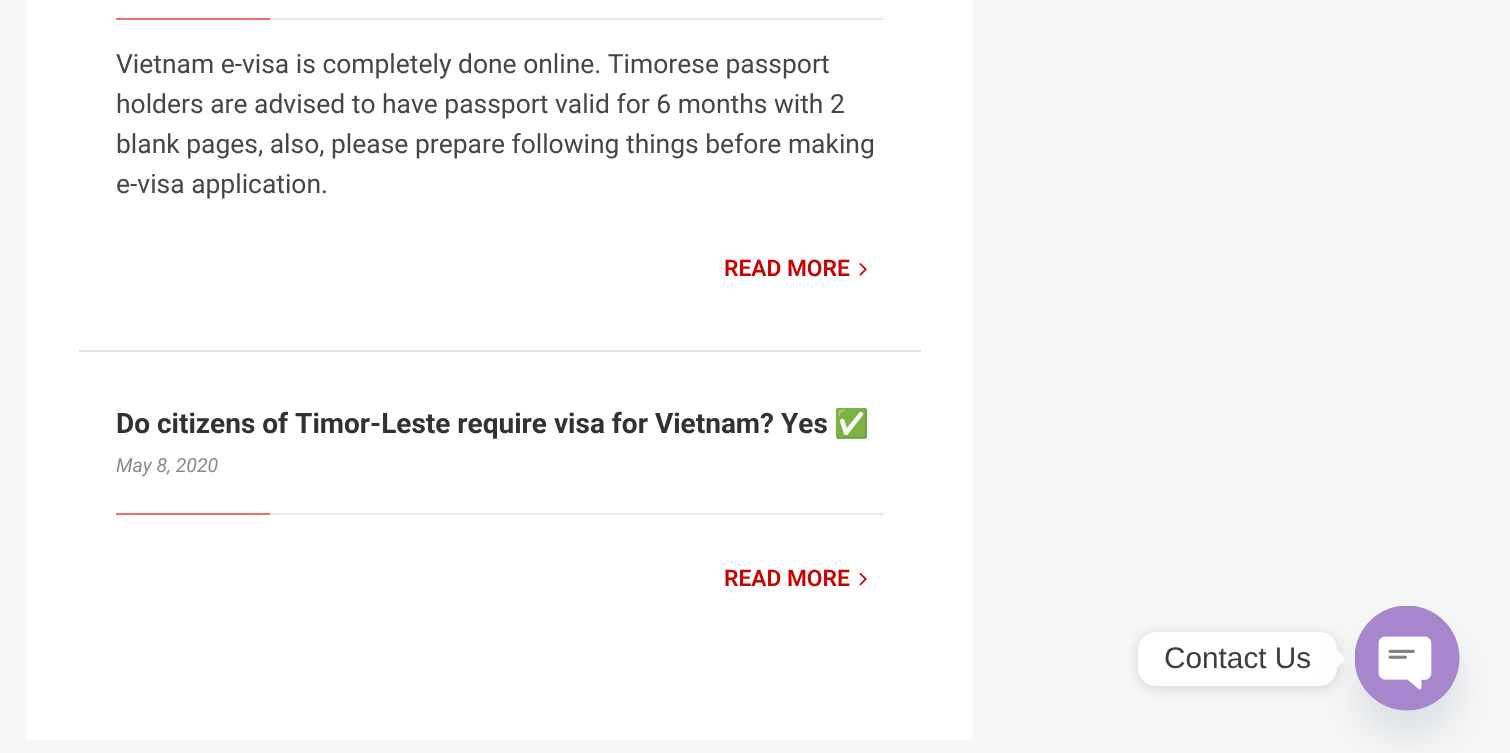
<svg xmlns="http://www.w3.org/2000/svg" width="1510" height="753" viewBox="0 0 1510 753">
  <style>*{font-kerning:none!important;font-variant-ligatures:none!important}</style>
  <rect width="100%" height="100%" fill="rgb(247,247,247)"/>
  <rect x="26" y="0" width="947" height="740" fill="rgb(255,255,255)"/>
  <rect x="79" y="350" width="842" height="2" fill="rgb(227,227,227)"/>
  <rect x="270" y="18" width="614" height="2" fill="rgb(233,233,233)"/>
  <rect x="116" y="18" width="154" height="2" fill="rgb(242,108,97)"/>
  <g font-family="Roboto" font-size="26.45" fill="rgb(70,70,70)">
    <text>
      <tspan x="116" y="73">Vietnam e-visa is completely done online. Timorese passport</tspan>
      <tspan x="116" y="113">holders are advised to have passport valid for 6 months with 2</tspan>
      <tspan x="116" y="153">blank pages, also, please prepare following things before making</tspan>
      <tspan x="116" y="193">e-visa application.</tspan>
    </text>
  </g>
  <text x="724" y="276" font-family="Roboto" font-size="22.75" font-weight="600" fill="rgb(200,0,0)">READ MORE</text>
  <image x="859" y="263" width="8" height="13" href="pic1.png"/>
  <text x="116" y="433" font-family="Roboto" font-size="28" font-weight="bold" fill="rgb(50,50,50)">Do citizens of Timor-Leste require visa for Vietnam? Yes</text>
  <text x="834" y="433" font-family="Noto Color Emoji" font-size="28" font-weight="bold" fill="rgb(50,50,50)">✅</text>
  <text x="116" y="472" font-family="Roboto" font-size="19.5" font-style="italic" fill="rgb(139,139,139)">May 8, 2020</text>
  <rect x="270" y="513" width="614" height="2" fill="rgb(233,233,233)"/>
  <rect x="116" y="513" width="154" height="2" fill="rgb(242,108,97)"/>
  <text x="724" y="586" font-family="Roboto" font-size="22.75" font-weight="600" fill="rgb(200,0,0)">READ MORE</text>
  <image x="859" y="572" width="8" height="14" href="pic2.png"/>
  <rect x="1138" y="634" width="199" height="54" rx="18" fill="rgba(0,0,0,0.15)" filter="blur(7px)"/>
  <rect x="1138" y="632" width="199" height="54" rx="18" fill="rgb(255,255,255)"/>
  <text x="1164" y="668" font-family="Liberation Sans" font-size="29.75" fill="rgb(61,61,61)">Contact Us</text>
  <path d="M1337 667.5V650L1346 659Z" fill="rgb(255,255,255)"/>
  <rect x="1355" y="634" width="105" height="105" rx="52.5" fill="rgba(73,104,126,0.16)" filter="blur(21px)"/>
  <image x="1355" y="606" width="105" height="105" href="pic3.png"/>
</svg>
